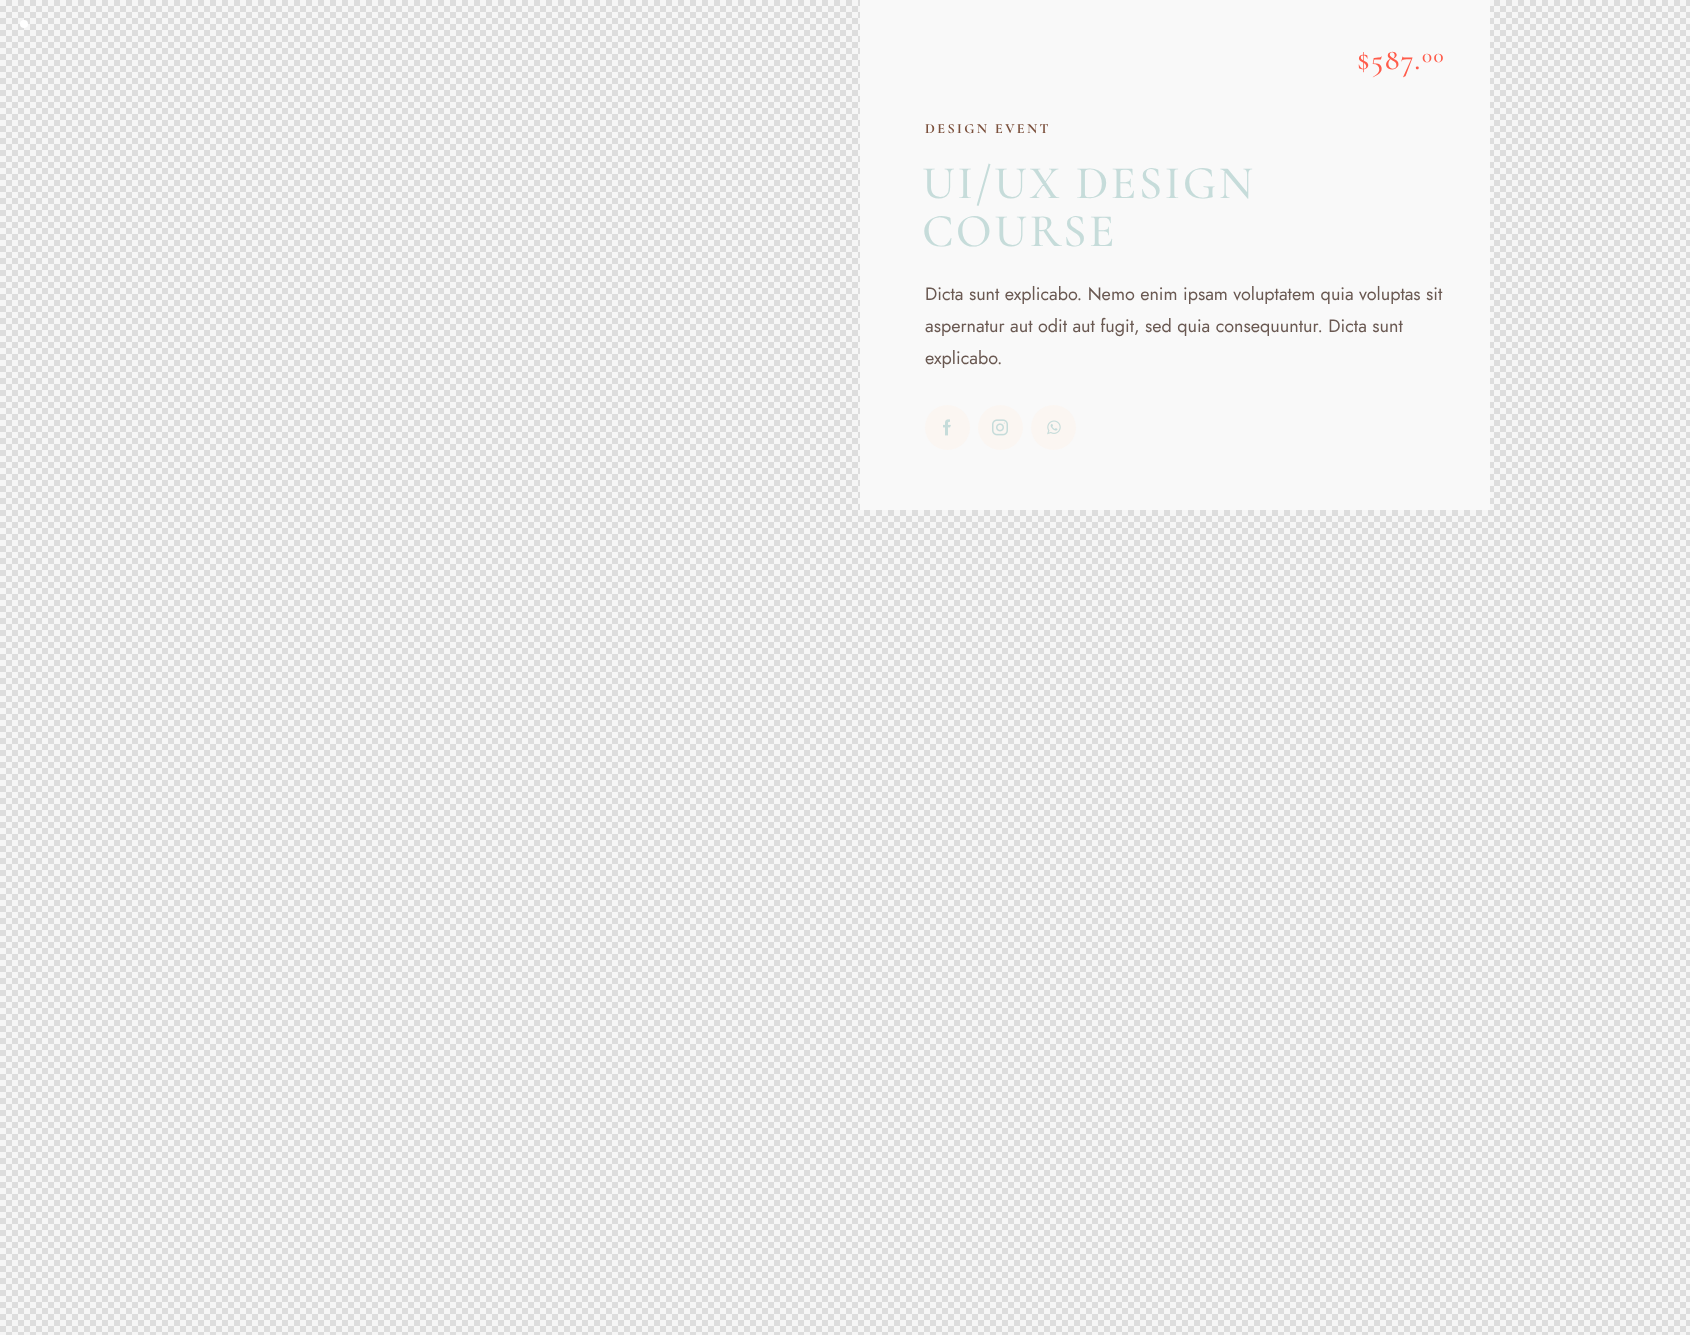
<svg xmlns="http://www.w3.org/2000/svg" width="1690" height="1335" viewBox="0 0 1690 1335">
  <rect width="100%" height="100%" fill="rgb(255,255,255)"/>
  <image x="0" y="0" width="1690" height="1335" href="pic1.png"/>
  <circle cx="24" cy="24" r="4" fill="rgb(255,255,255)"/>
  <rect x="860" y="0" width="630" height="510" fill="rgb(249,249,249)"/>
  <text x="1357" y="69" font-family="Cormorant" font-size="30" font-weight="500" letter-spacing="1.5" fill="rgb(255,91,74)">$587.</text>
  <text x="1422" y="62" font-family="Cormorant" font-size="21" font-weight="500" letter-spacing="1.5" fill="rgb(255,91,74)">00</text>
  <text x="925" y="133" font-family="Cormorant" font-size="14" font-weight="bold" letter-spacing="2.4" fill="rgb(123,80,60)">DESIGN EVENT</text>
  <g font-family="Cormorant" font-size="47" font-weight="500" letter-spacing="2.4" fill="rgb(198,220,218)">
    <text>
      <tspan x="922" y="198">UI/UX DESIGN</tspan>
      <tspan x="922" y="246">COURSE</tspan>
    </text>
  </g>
  <g font-family="Jost" font-size="18" fill="rgb(106,89,82)">
    <text>
      <tspan x="925" y="300">Dicta sunt explicabo. Nemo enim ipsam voluptatem quia voluptas sit</tspan>
      <tspan x="925" y="332">aspernatur aut odit aut fugit, sed quia consequuntur. Dicta sunt</tspan>
      <tspan x="925" y="364">explicabo.</tspan>
    </text>
  </g>
  <circle cx="947.5" cy="427.5" r="22.5" fill="rgb(251,246,242)"/>
  <image x="943" y="419" width="8" height="17" href="pic2.png"/>
  <circle cx="1000.5" cy="427.5" r="22.5" fill="rgb(251,246,242)"/>
  <image x="992" y="419" width="16" height="17" href="pic3.png"/>
  <circle cx="1053.5" cy="427.5" r="22.5" fill="rgb(251,246,242)"/>
  <image x="1047" y="420" width="14" height="15" href="pic4.png"/>
</svg>
